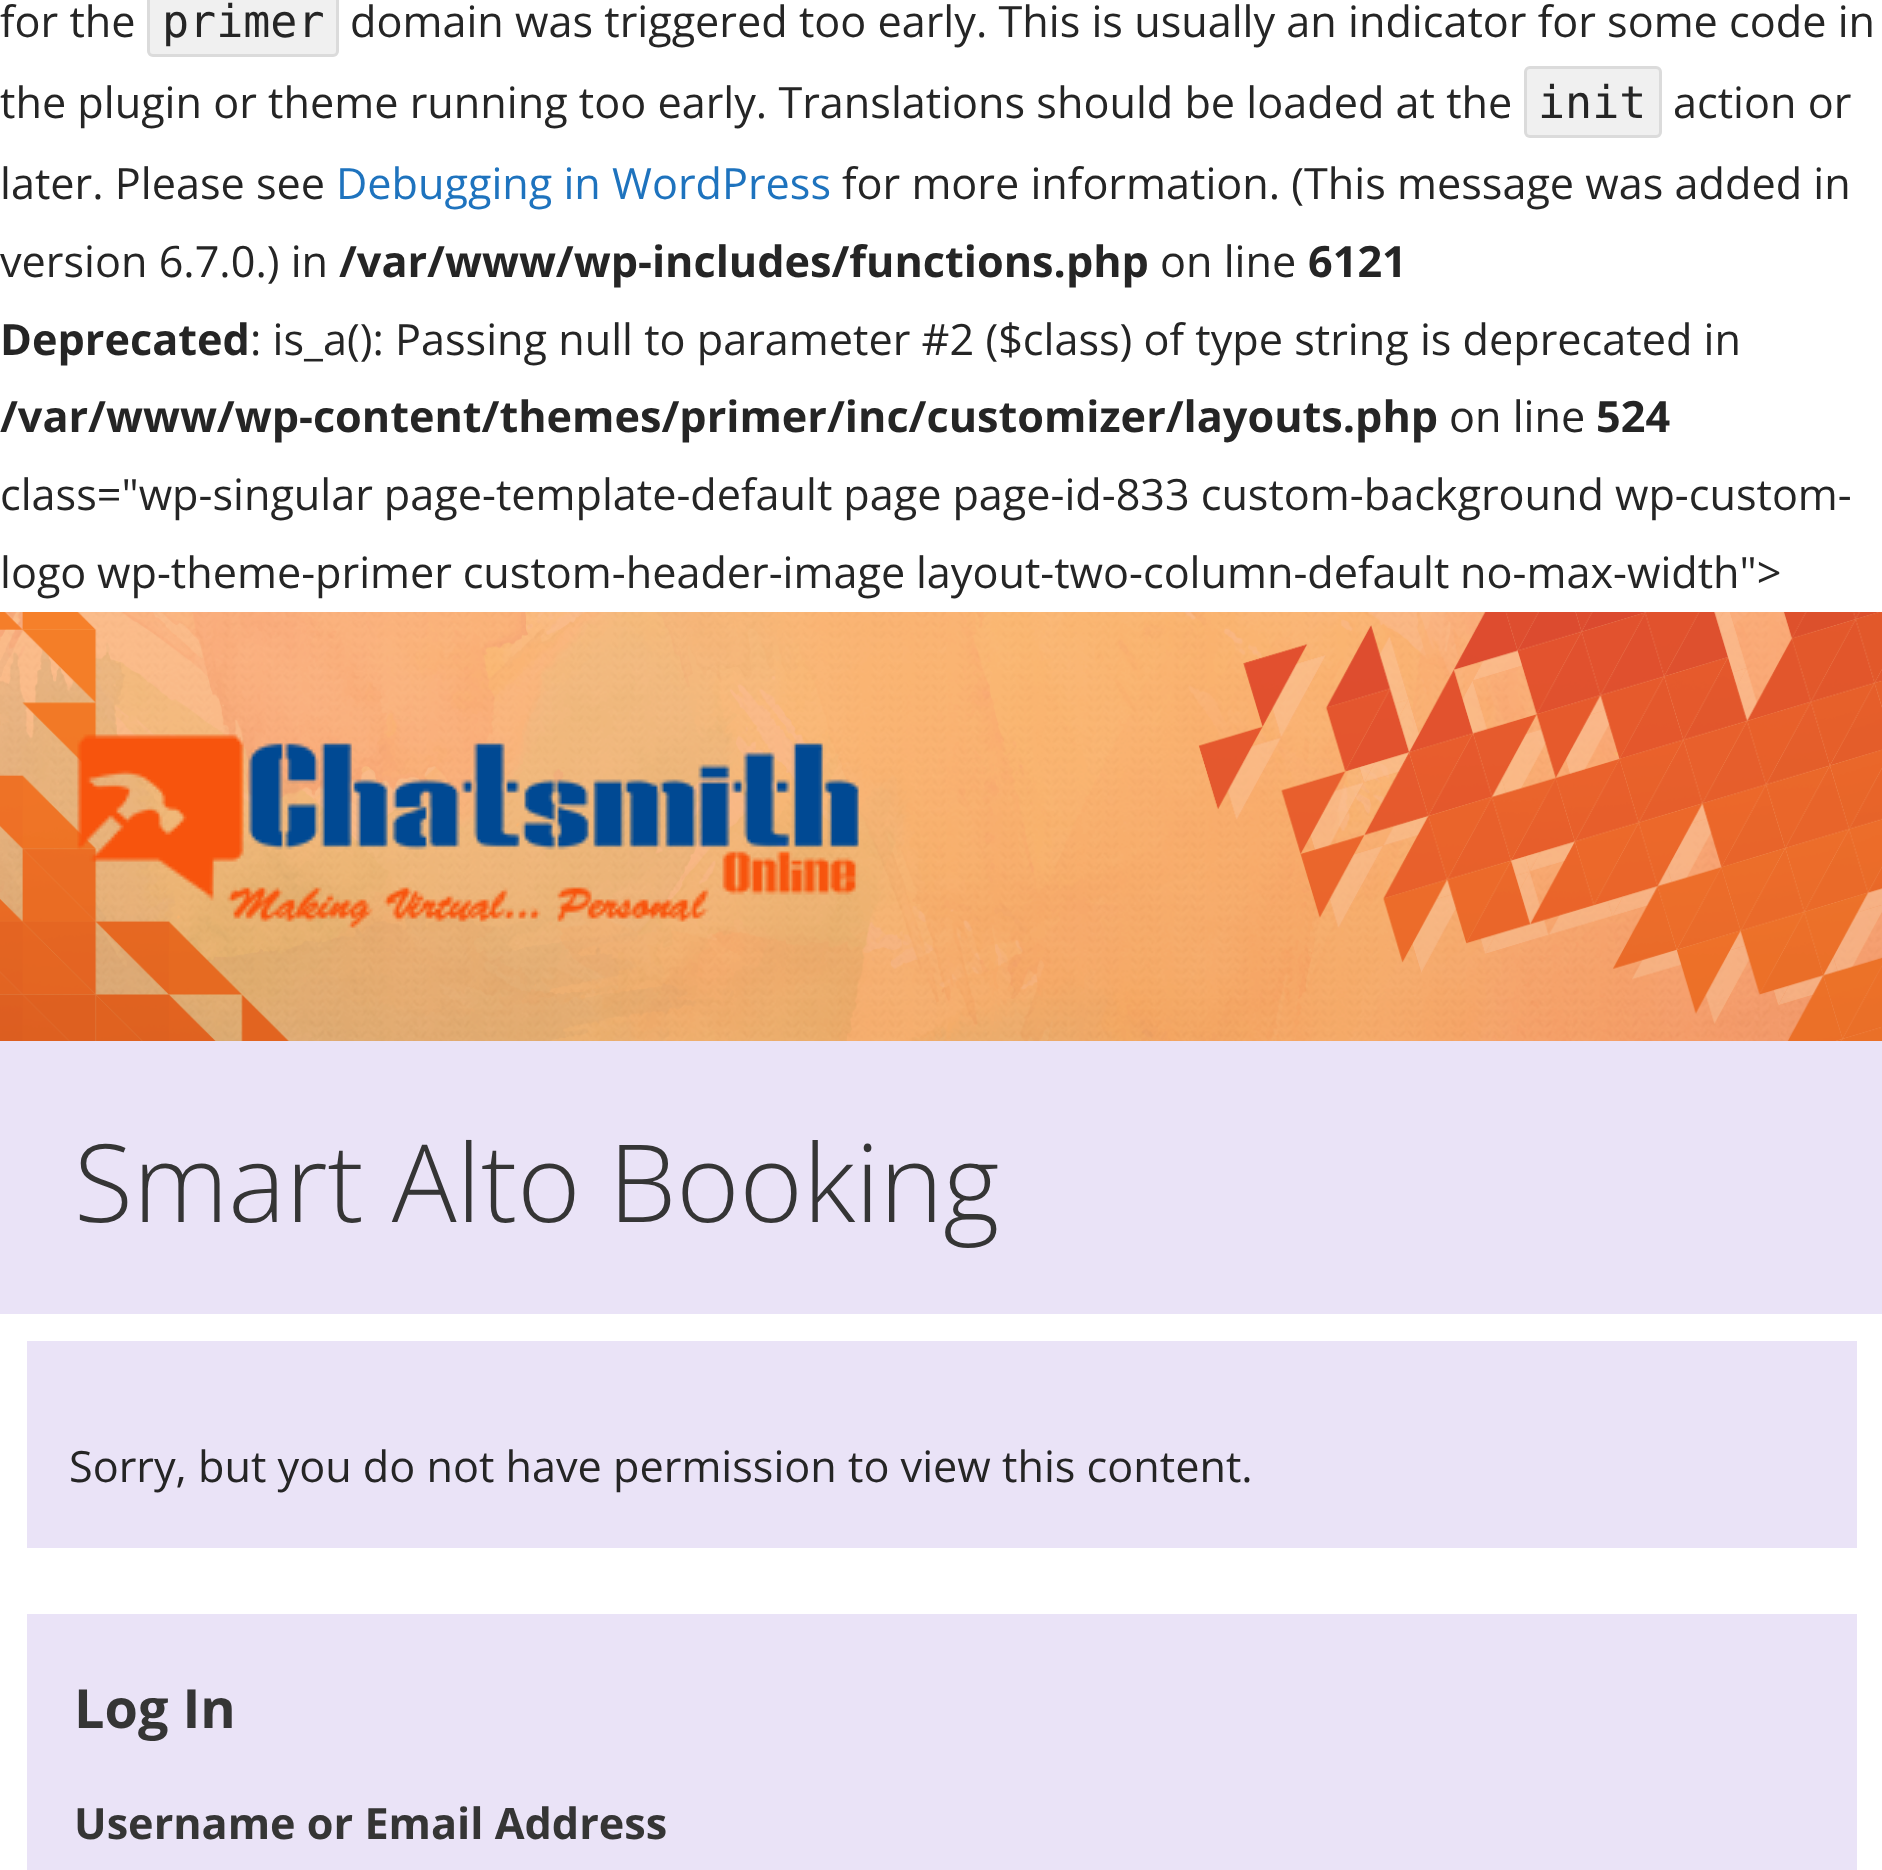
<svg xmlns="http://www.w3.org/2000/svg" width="1882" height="1870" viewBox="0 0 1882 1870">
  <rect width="100%" height="100%" fill="rgb(255,255,255)"/>
  <text x="0" y="37" font-family="Open Sans" font-size="43.2" fill="rgb(37,37,37)">for the</text>
  <rect x="147" y="-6" width="192" height="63" rx="6" fill="rgb(240,240,240)"/>
  <rect x="148.5" y="-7.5" width="189" height="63" rx="4.5" fill="none" stroke="rgba(37,37,37,0.1)" stroke-width="3"/>
  <text x="162" y="37" font-family="DejaVu Sans Mono" font-size="45" fill="rgb(37,37,37)">primer</text>
  <g font-family="Open Sans" font-size="43.2" fill="rgb(37,37,37)">
    <text x="350" y="37">domain was triggered too early. This is usually an indicator for some code in</text>
    <text x="0" y="118">the plugin or theme running too early. Translations should be loaded at the</text>
  </g>
  <rect x="1524" y="66" width="138" height="72" rx="6" fill="rgb(240,240,240)"/>
  <rect x="1525.5" y="67.5" width="135" height="69" rx="4.5" fill="none" stroke="rgba(37,37,37,0.1)" stroke-width="3"/>
  <text x="1538" y="118" font-family="DejaVu Sans Mono" font-size="45" fill="rgb(37,37,37)">init</text>
  <g font-family="Open Sans" font-size="43.2" fill="rgb(37,37,37)">
    <text x="1673" y="118">action or</text>
    <text x="0" y="199">later. Please see</text>
  </g>
  <text x="336" y="199" font-family="Open Sans" font-size="43.2" fill="rgb(30,115,190)">Debugging in WordPress</text>
  <g font-family="Open Sans" font-size="43.2" fill="rgb(37,37,37)">
    <text x="842" y="199">for more information. (This message was added in</text>
    <text x="0" y="277">version 6.7.0.) in</text>
  </g>
  <text x="339" y="277" font-family="Open Sans" font-size="43.2" font-weight="bold" fill="rgb(37,37,37)">/var/www/wp-includes/functions.php</text>
  <text x="1160" y="277" font-family="Open Sans" font-size="43.2" fill="rgb(37,37,37)">on line</text>
  <g font-family="Open Sans" font-size="43.2" font-weight="bold" fill="rgb(37,37,37)">
    <text x="1308" y="277">6121</text>
    <text x="0" y="355">Deprecated</text>
  </g>
  <text x="250" y="355" font-family="Open Sans" font-size="43.2" fill="rgb(37,37,37)">: is_a(): Passing null to parameter #2 ($class) of type string is deprecated in</text>
  <text x="0" y="432" font-family="Open Sans" font-size="43.2" font-weight="bold" fill="rgb(37,37,37)">/var/www/wp-content/themes/primer/inc/customizer/layouts.php</text>
  <text x="1449" y="432" font-family="Open Sans" font-size="43.2" fill="rgb(37,37,37)">on line</text>
  <text x="1596" y="432" font-family="Open Sans" font-size="43.2" font-weight="bold" fill="rgb(37,37,37)">524</text>
  <g font-family="Open Sans" font-size="43.2" fill="rgb(37,37,37)">
    <text>
      <tspan x="0" y="510" word-spacing="-0.25">class="wp-singular page-template-default page page-id-833 custom-background wp-custom-</tspan>
      <tspan x="0" y="588" word-spacing="-0.5">logo wp-theme-primer custom-header-image layout-two-column-default no-max-width"&gt;</tspan>
    </text>
  </g>
  <image x="0" y="612" width="1882" height="429" href="pic1.png"/>
  <image x="77" y="734" width="782" height="194" href="pic2.png"/>
  <rect x="0" y="1041" width="1882" height="273" fill="rgb(234,227,247)"/>
  <text x="74" y="1222" font-family="Open Sans" font-size="108" font-weight="300" fill="rgb(53,53,53)">Smart Alto Booking</text>
  <rect x="27" y="1341" width="1830" height="207" fill="rgb(234,227,247)"/>
  <text x="69" y="1482" font-family="Open Sans" font-size="43.2" fill="rgb(37,37,37)">Sorry, but you do not have permission to view this content.</text>
  <rect x="27" y="1614" width="1830" height="256" fill="rgb(234,227,247)"/>
  <text x="74" y="1728" font-family="Open Sans" font-size="54" font-weight="bold" fill="rgb(53,53,53)">Log In</text>
  <text x="74" y="1839" font-family="Open Sans" font-size="43.2" font-weight="bold" fill="rgb(53,53,53)">Username or Email Address</text>
</svg>
